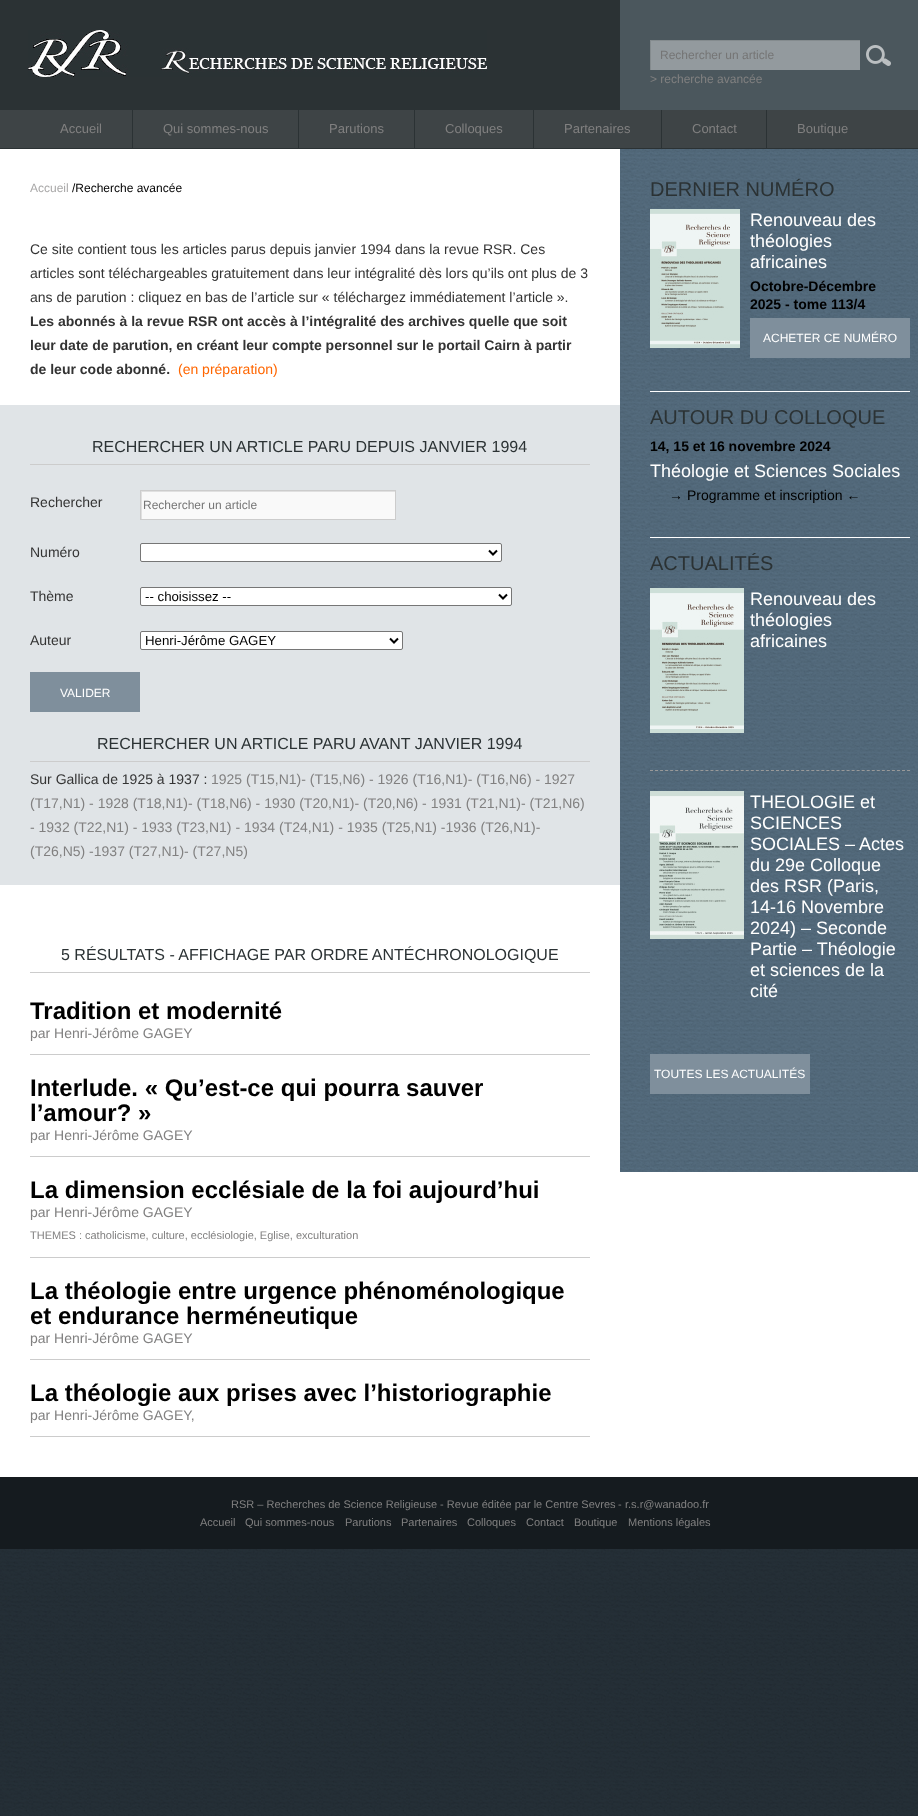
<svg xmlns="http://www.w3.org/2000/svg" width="918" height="1816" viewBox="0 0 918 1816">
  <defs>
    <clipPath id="clip1"><rect x="650" y="40" width="210" height="30"/></clipPath>
    <clipPath id="clip2"><rect x="141" y="491" width="254" height="28"/></clipPath>
    <clipPath id="clip3"><rect x="650" y="553" width="260" height="589"/></clipPath>
  </defs>
  <rect width="100%" height="100%" fill="rgb(255,255,255)"/>
  <image x="0" y="1549" width="918" height="267" href="pic1.png"/>
  <rect x="0" y="0" width="620" height="110" fill="rgb(43,50,52)"/>
  <image x="28" y="30" width="459" height="47" href="pic2.png"/>
  <rect x="620" y="0" width="298" height="110" fill="rgb(75,87,93)"/>
  <rect x="651" y="41" width="209" height="29" fill="rgb(147,154,158)"/>
  <g clip-path="url(#clip1)">
    <path d="M551-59H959V169H551ZM651 41H861V71H651Z" fill="rgb(132,139,142)" fill-rule="evenodd"/>
  </g>
  <text x="660" y="59" font-family="Liberation Sans" font-size="12" fill="rgb(117,117,117)">Rechercher un article</text>
  <image x="866" y="45" width="25" height="21" href="pic3.png"/>
  <text x="650" y="83" font-family="Liberation Sans" font-size="12" fill="rgb(129,128,128)">&gt; recherche avancée</text>
  <rect x="0" y="110" width="918" height="38" fill="rgb(62,68,70)"/>
  <rect x="0" y="148" width="918" height="1" fill="rgb(43,50,52)"/>
  <rect x="132" y="110" width="1" height="38" fill="rgb(43,50,52)"/>
  <text x="60" y="133" font-family="Liberation Sans" font-size="13" fill="rgb(129,128,128)">Accueil</text>
  <rect x="298" y="110" width="1" height="38" fill="rgb(43,50,52)"/>
  <text x="163" y="133" font-family="Liberation Sans" font-size="13" fill="rgb(129,128,128)">Qui sommes-nous</text>
  <rect x="414" y="110" width="1" height="38" fill="rgb(43,50,52)"/>
  <text x="329" y="133" font-family="Liberation Sans" font-size="13" fill="rgb(129,128,128)">Parutions</text>
  <rect x="533" y="110" width="1" height="38" fill="rgb(43,50,52)"/>
  <text x="445" y="133" font-family="Liberation Sans" font-size="13" fill="rgb(129,128,128)">Colloques</text>
  <rect x="661" y="110" width="1" height="38" fill="rgb(43,50,52)"/>
  <text x="564" y="133" font-family="Liberation Sans" font-size="13" fill="rgb(129,128,128)">Partenaires</text>
  <rect x="766" y="110" width="1" height="38" fill="rgb(43,50,52)"/>
  <g font-family="Liberation Sans" font-size="13" fill="rgb(129,128,128)">
    <text x="692" y="133">Contact</text>
    <text x="797" y="133">Boutique</text>
  </g>
  <text x="30" y="192" font-family="Liberation Sans" font-size="12" fill="rgb(168,167,167)">Accueil</text>
  <text x="72" y="192" font-family="Liberation Sans" font-size="12" fill="rgb(0,0,0)">/Recherche avancée</text>
  <g font-family="Liberation Sans" font-size="14" fill="rgb(51,51,51)">
    <text>
      <tspan x="30" y="254">Ce site contient tous les articles parus depuis janvier 1994 dans la revue RSR. Ces</tspan>
      <tspan x="30" y="278">articles sont téléchargeables gratuitement dans leur intégralité dès lors qu’ils ont plus de 3</tspan>
      <tspan x="30" y="302">ans de parution : cliquez en bas de l’article sur « téléchargez immédiatement l’article ».</tspan>
    </text>
  </g>
  <g font-family="Liberation Sans" font-size="14" font-weight="bold" fill="rgb(51,51,51)">
    <text>
      <tspan x="30" y="326">Les abonnés à la revue RSR ont accès à l’intégralité des archives quelle que soit</tspan>
      <tspan x="30" y="350">leur date de parution, en créant leur compte personnel sur le portail Cairn à partir</tspan>
      <tspan x="30" y="374">de leur code abonné.</tspan>
    </text>
  </g>
  <text x="178" y="374" font-family="Liberation Sans" font-size="14" fill="rgb(255,102,0)">(en préparation)</text>
  <rect x="0" y="405" width="620" height="480" fill="rgb(224,228,231)"/>
  <rect x="30" y="464" width="560" height="1" fill="rgb(204,204,204)"/>
  <text x="92" y="452" font-family="Liberation Sans" font-size="16" fill="rgb(43,50,52)">RECHERCHER UN ARTICLE PARU DEPUIS JANVIER 1994</text>
  <text x="30" y="507" font-family="Liberation Sans" font-size="14" fill="rgb(51,51,51)">Rechercher</text>
  <rect x="142" y="492" width="253" height="27" fill="rgb(249,249,249)"/>
  <g clip-path="url(#clip2)">
    <path d="M42 392H494V618H42ZM142 492H396V520H142Z" fill="rgb(224,224,224)" fill-rule="evenodd"/>
  </g>
  <rect x="140.5" y="490.5" width="255" height="29" fill="none" stroke="rgb(204,204,204)"/>
  <text x="143" y="509" font-family="Liberation Sans" font-size="12" fill="rgb(117,117,117)">Rechercher un article</text>
  <text x="30" y="557" font-family="Liberation Sans" font-size="14" fill="rgb(51,51,51)">Numéro</text>
  <rect x="140.5" y="543.5" width="361" height="18" rx="1.5" fill="rgb(255,255,255)" stroke="rgb(118,118,118)"/>
  <path d="M489 550.5L493 554.5L497 550.5" fill="none" stroke="rgb(0,0,0)" stroke-width="2"/>
  <text x="30" y="601" font-family="Liberation Sans" font-size="14" fill="rgb(51,51,51)">Thème</text>
  <rect x="140.5" y="587.5" width="371" height="18" rx="1.5" fill="rgb(255,255,255)" stroke="rgb(118,118,118)"/>
  <path d="M499 594.5L503 598.5L507 594.5" fill="none" stroke="rgb(0,0,0)" stroke-width="2"/>
  <text x="145" y="601" font-family="Liberation Sans" font-size="13.25" fill="rgb(0,0,0)">-- choisissez --</text>
  <text x="30" y="645" font-family="Liberation Sans" font-size="14" fill="rgb(51,51,51)">Auteur</text>
  <rect x="140.5" y="631.5" width="262" height="18" rx="1.5" fill="rgb(255,255,255)" stroke="rgb(118,118,118)"/>
  <path d="M390 638.5L394 642.5L398 638.5" fill="none" stroke="rgb(0,0,0)" stroke-width="2"/>
  <text x="145" y="645" font-family="Liberation Sans" font-size="13.25" fill="rgb(0,0,0)">Henri-Jérôme GAGEY</text>
  <rect x="30" y="672" width="110" height="40" fill="rgb(127,143,156)"/>
  <text x="60" y="697" font-family="Liberation Sans" font-size="12" fill="rgb(255,255,255)">VALIDER</text>
  <rect x="30" y="761" width="560" height="1" fill="rgb(204,204,204)"/>
  <text x="97" y="749" font-family="Liberation Sans" font-size="16" fill="rgb(43,50,52)">RECHERCHER UN ARTICLE PARU AVANT JANVIER 1994</text>
  <text x="30" y="784" font-family="Liberation Sans" font-size="14" fill="rgb(51,51,51)">Sur Gallica de 1925 à 1937 :</text>
  <g font-family="Liberation Sans" font-size="14" fill="rgb(129,128,128)">
    <text x="211" y="784">1925 (T15,N1)- (T15,N6) - 1926 (T16,N1)- (T16,N6) - 1927</text>
    <text>
      <tspan x="30" y="808">(T17,N1) - 1928 (T18,N1)- (T18,N6) - 1930 (T20,N1)- (T20,N6) - 1931 (T21,N1)- (T21,N6)</tspan>
      <tspan x="30" y="832">- 1932 (T22,N1) - 1933 (T23,N1) - 1934 (T24,N1) - 1935 (T25,N1) -1936 (T26,N1)-</tspan>
      <tspan x="30" y="856">(T26,N5) -1937 (T27,N1)- (T27,N5)</tspan>
    </text>
  </g>
  <rect x="30" y="972" width="560" height="1" fill="rgb(204,204,204)"/>
  <text x="61" y="960" font-family="Liberation Sans" font-size="16" fill="rgb(43,50,52)">5 RÉSULTATS - AFFICHAGE PAR ORDRE ANTÉCHRONOLOGIQUE</text>
  <rect x="30" y="1054" width="560" height="1" fill="rgb(204,204,204)"/>
  <text x="30" y="1019" font-family="Liberation Sans" font-size="24" font-weight="bold" fill="rgb(0,0,0)">Tradition et modernité</text>
  <text x="30" y="1038" font-family="Liberation Sans" font-size="14" fill="rgb(129,128,128)">par Henri-Jérôme GAGEY</text>
  <rect x="30" y="1156" width="560" height="1" fill="rgb(204,204,204)"/>
  <g font-family="Liberation Sans" font-size="24" font-weight="bold" fill="rgb(0,0,0)">
    <text>
      <tspan x="30" y="1096">Interlude. « Qu’est-ce qui pourra sauver</tspan>
      <tspan x="30" y="1121">l’amour? »</tspan>
    </text>
  </g>
  <text x="30" y="1140" font-family="Liberation Sans" font-size="14" fill="rgb(129,128,128)">par Henri-Jérôme GAGEY</text>
  <rect x="30" y="1257" width="560" height="1" fill="rgb(204,204,204)"/>
  <text x="30" y="1198" font-family="Liberation Sans" font-size="24" font-weight="bold" fill="rgb(0,0,0)">La dimension ecclésiale de la foi aujourd’hui</text>
  <text x="30" y="1217" font-family="Liberation Sans" font-size="14" fill="rgb(129,128,128)">par Henri-Jérôme GAGEY</text>
  <text x="30" y="1239" font-family="Liberation Sans" font-size="11" fill="rgb(129,128,128)">THEMES : catholicisme, culture, ecclésiologie, Eglise, exculturation</text>
  <rect x="30" y="1359" width="560" height="1" fill="rgb(204,204,204)"/>
  <g font-family="Liberation Sans" font-size="24" font-weight="bold" fill="rgb(0,0,0)">
    <text>
      <tspan x="30" y="1299">La théologie entre urgence phénoménologique</tspan>
      <tspan x="30" y="1324">et endurance herméneutique</tspan>
    </text>
  </g>
  <text x="30" y="1343" font-family="Liberation Sans" font-size="14" fill="rgb(129,128,128)">par Henri-Jérôme GAGEY</text>
  <rect x="30" y="1436" width="560" height="1" fill="rgb(204,204,204)"/>
  <text x="30" y="1401" font-family="Liberation Sans" font-size="24" font-weight="bold" fill="rgb(0,0,0)">La théologie aux prises avec l’historiographie</text>
  <text x="30" y="1420" font-family="Liberation Sans" font-size="14" fill="rgb(129,128,128)">par Henri-Jérôme GAGEY,</text>
  <image x="620" y="149" width="298" height="1023" href="pic4.png"/>
  <rect x="650" y="391" width="260" height="1" fill="rgb(255,255,255)"/>
  <text x="650" y="196" font-family="Liberation Sans" font-size="20" fill="rgb(43,50,52)">DERNIER NUMÉRO</text>
  <image x="650" y="209" width="90" height="139" href="pic5.png"/>
  <g font-family="Liberation Sans" font-size="18" fill="rgb(255,255,255)">
    <text>
      <tspan x="750" y="226">Renouveau des</tspan>
      <tspan x="750" y="247">théologies</tspan>
      <tspan x="750" y="268">africaines</tspan>
    </text>
  </g>
  <g font-family="Liberation Sans" font-size="14" font-weight="bold" fill="rgb(0,0,0)">
    <text>
      <tspan x="750" y="291">Octobre-Décembre</tspan>
      <tspan x="750" y="309">2025 - tome 113/4</tspan>
    </text>
  </g>
  <rect x="750" y="318" width="160" height="40" fill="rgb(127,143,156)"/>
  <text x="763" y="342" font-family="Liberation Sans" font-size="12" fill="rgb(255,255,255)">ACHETER CE NUMÉRO</text>
  <rect x="650" y="537" width="260" height="1" fill="rgb(255,255,255)"/>
  <text x="650" y="424" font-family="Liberation Sans" font-size="20" fill="rgb(43,50,52)">AUTOUR DU COLLOQUE</text>
  <text x="650" y="451" font-family="Liberation Sans" font-size="14" font-weight="bold" fill="rgb(0,0,0)">14, 15 et 16 novembre 2024</text>
  <text x="650" y="477" font-family="Liberation Sans" font-size="18" fill="rgb(255,255,255)">Théologie et Sciences Sociales</text>
  <text x="669" y="500" font-family="Liberation Sans" font-size="14" fill="rgb(0,0,0)">→ Programme et inscription ←</text>
  <g clip-path="url(#clip3)">
    <text x="650" y="570" font-family="Liberation Sans" font-size="20" fill="rgb(43,50,52)">ACTUALITÉS</text>
  </g>
  <path d="M650 770.5H910" fill="none" stroke="rgb(153,153,153)" stroke-dasharray="3 2.04"/>
  <image x="650" y="588" width="94" height="145" href="pic6.png"/>
  <g font-family="Liberation Sans" font-size="18" fill="rgb(255,255,255)">
    <text>
      <tspan x="750" y="605">Renouveau des</tspan>
      <tspan x="750" y="626">théologies</tspan>
      <tspan x="750" y="647">africaines</tspan>
    </text>
  </g>
  <image x="650" y="791" width="94" height="148" href="pic7.png"/>
  <g font-family="Liberation Sans" font-size="18" fill="rgb(255,255,255)">
    <text>
      <tspan x="750" y="808">THEOLOGIE et</tspan>
      <tspan x="750" y="829">SCIENCES</tspan>
      <tspan x="750" y="850">SOCIALES –</tspan>
    </text>
    <text x="859" y="850">Actes</text>
    <text>
      <tspan x="750" y="871">du 29e Colloque</tspan>
      <tspan x="750" y="892">des RSR (Paris,</tspan>
      <tspan x="750" y="913">14-16 Novembre</tspan>
      <tspan x="750" y="934">2024) – Seconde</tspan>
      <tspan x="750" y="955">Partie – Théologie</tspan>
      <tspan x="750" y="976">et sciences de la</tspan>
      <tspan x="750" y="997">cité</tspan>
    </text>
  </g>
  <rect x="650" y="1054" width="160" height="40" fill="rgb(127,143,156)"/>
  <text x="654" y="1078" font-family="Liberation Sans" font-size="12" fill="rgb(255,255,255)">TOUTES LES ACTUALITÉS</text>
  <rect x="0" y="1477" width="918" height="72" fill="rgb(21,27,31)"/>
  <g font-family="Liberation Sans" font-size="11" fill="rgb(129,128,128)">
    <text x="231" y="1508">RSR – Recherches de Science Religieuse - Revue éditée par le Centre Sevres</text>
    <text x="618" y="1508">-</text>
    <text x="625" y="1508">r.s.r@wanadoo.fr</text>
    <text x="200" y="1526">Accueil</text>
    <text x="245" y="1526">Qui sommes-nous</text>
    <text x="345" y="1526">Parutions</text>
    <text x="401" y="1526">Partenaires</text>
    <text x="467" y="1526">Colloques</text>
    <text x="526" y="1526">Contact</text>
    <text x="574" y="1526">Boutique</text>
    <text x="628" y="1526">Mentions légales</text>
  </g>
</svg>
